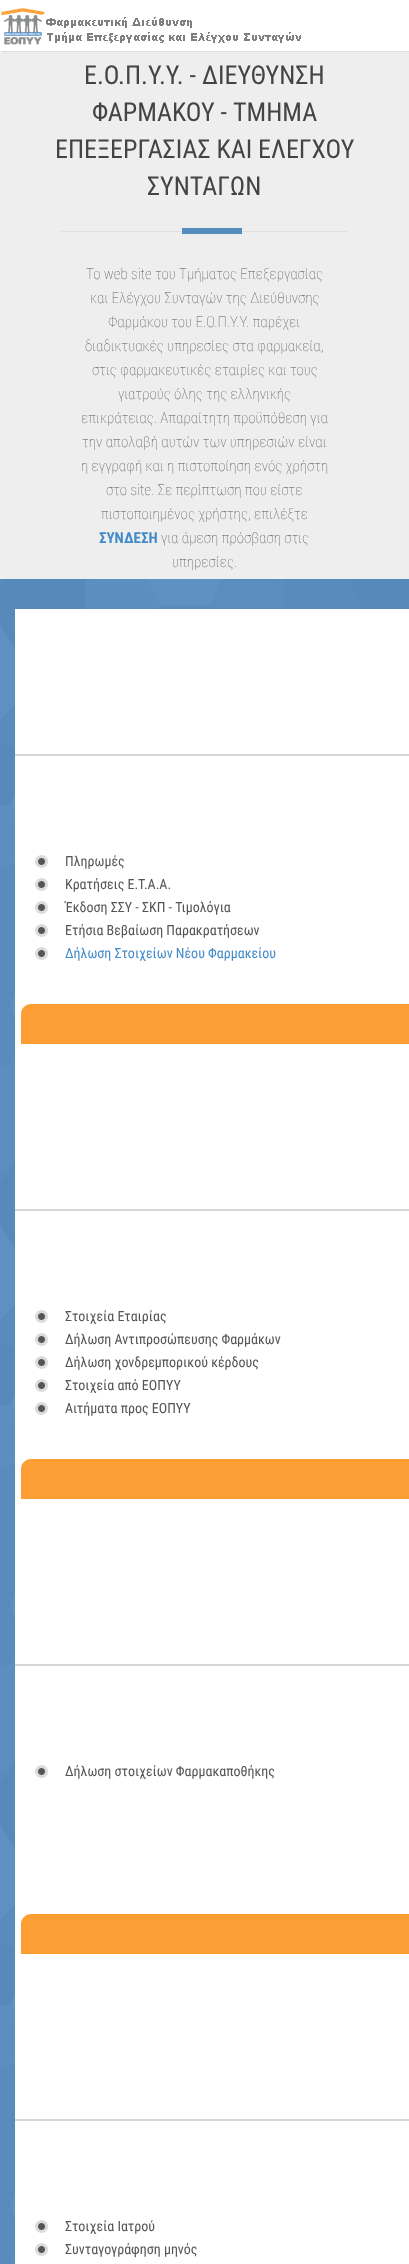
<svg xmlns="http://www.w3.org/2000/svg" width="409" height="2264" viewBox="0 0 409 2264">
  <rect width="100%" height="100%" fill="rgb(255,255,255)"/>
  <image x="0" y="579" width="409" height="1685" href="pic1.png"/>
  <rect x="0" y="51" width="409" height="1" fill="rgb(221,221,221)"/>
  <rect x="0" y="51" width="1" height="1" fill="rgb(255,255,255)"/>
  <image x="1" y="8" width="300" height="37" href="pic2.png"/>
  <rect x="0" y="52" width="409" height="527" fill="rgb(238,238,238)"/>
  <g font-family="Roboto Condensed" font-size="26" fill="rgb(68,68,68)">
    <text x="84" y="84">Ε.Ο.Π.Υ.Υ. - ΔΙΕΥΘΥΝΣΗ</text>
    <text x="92" y="121">ΦΑΡΜΑΚΟΥ - ΤΜΗΜΑ</text>
    <text x="55" y="158">ΕΠΕΞΕΡΓΑΣΙΑΣ ΚΑΙ ΕΛΕΓΧΟΥ</text>
    <text x="147" y="195">ΣΥΝΤΑΓΩΝ</text>
  </g>
  <rect x="61" y="231" width="287" height="1" fill="rgb(225,225,225)"/>
  <rect x="182" y="228" width="60" height="6" fill="rgb(86,141,191)"/>
  <g font-family="Roboto Condensed" font-size="15" font-weight="100" fill="rgb(85,85,85)">
    <text x="86" y="279">Το web site του Τμήματος Επεξεργασίας</text>
    <text x="90" y="303">και Ελέγχου Συνταγών της Διεύθυνσης</text>
    <text x="108" y="327">Φαρμάκου του Ε.Ο.Π.Υ.Υ. παρέχει</text>
    <text x="85" y="351">διαδικτυακές υπηρεσίες στα φαρμακεία,</text>
    <text x="92" y="375">στις φαρμακευτικές εταιρίες και τους</text>
    <text x="118" y="399">γιατρούς όλης της ελληνικής</text>
    <text x="81" y="423">επικράτειας. Απαραίτητη προϋπόθεση για</text>
    <text x="82" y="447">την απολαβή αυτών των υπηρεσιών είναι</text>
    <text x="81" y="471">η εγγραφή και η πιστοποίηση ενός χρήστη</text>
    <text x="106" y="495">στο site. Σε περίπτωση που είστε</text>
    <text x="101" y="519">πιστοποιημένος χρήστης, επιλέξτε</text>
  </g>
  <text x="99" y="543" font-family="Roboto Condensed" font-size="15" font-weight="bold" fill="rgb(66,139,202)">ΣΥΝΔΕΣΗ</text>
  <g font-family="Roboto Condensed" font-size="15" font-weight="100" fill="rgb(85,85,85)">
    <text x="161" y="543">για άμεση πρόσβαση στις</text>
    <text x="172" y="567">υπηρεσίες.</text>
  </g>
  <rect x="15" y="609" width="394" height="1655" fill="rgb(255,255,255)"/>
  <rect x="15" y="754" width="394" height="2" fill="rgb(212,214,218)"/>
  <image x="35" y="855" width="13" height="13" href="pic3.png"/>
  <text x="65" y="866" font-family="Roboto Condensed" font-size="14" fill="rgb(85,85,85)">Πληρωμές</text>
  <image x="35" y="878" width="13" height="13" href="pic3.png"/>
  <text x="65" y="889" font-family="Roboto Condensed" font-size="14" fill="rgb(85,85,85)">Κρατήσεις Ε.Τ.Α.Α.</text>
  <image x="35" y="901" width="13" height="13" href="pic3.png"/>
  <text x="65" y="912" font-family="Roboto Condensed" font-size="14" fill="rgb(85,85,85)">Έκδοση ΣΣΥ - ΣΚΠ - Τιμολόγια</text>
  <image x="35" y="924" width="13" height="13" href="pic3.png"/>
  <text x="65" y="935" font-family="Roboto Condensed" font-size="14" fill="rgb(85,85,85)">Ετήσια Βεβαίωση Παρακρατήσεων</text>
  <image x="35" y="947" width="13" height="13" href="pic3.png"/>
  <text x="65" y="958" font-family="Roboto Condensed" font-size="14" fill="rgb(66,139,202)">Δήλωση Στοιχείων Νέου Φαρμακείου</text>
  <path d="M31 1004H409C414.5 1004 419 1008.5 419 1014V1044H21V1014C21 1008.5 25.5 1004 31 1004Z" fill="rgb(253,158,53)"/>
  <rect x="15" y="1209" width="394" height="2" fill="rgb(212,214,218)"/>
  <image x="35" y="1310" width="13" height="13" href="pic3.png"/>
  <text x="65" y="1321" font-family="Roboto Condensed" font-size="14" fill="rgb(85,85,85)">Στοιχεία Εταιρίας</text>
  <image x="35" y="1333" width="13" height="13" href="pic3.png"/>
  <text x="65" y="1344" font-family="Roboto Condensed" font-size="14" fill="rgb(85,85,85)">Δήλωση Αντιπροσώπευσης Φαρμάκων</text>
  <image x="35" y="1356" width="13" height="13" href="pic3.png"/>
  <text x="65" y="1367" font-family="Roboto Condensed" font-size="14" fill="rgb(85,85,85)">Δήλωση χονδρεμπορικού κέρδους</text>
  <image x="35" y="1379" width="13" height="13" href="pic3.png"/>
  <text x="65" y="1390" font-family="Roboto Condensed" font-size="14" fill="rgb(85,85,85)">Στοιχεία από ΕΟΠΥΥ</text>
  <image x="35" y="1402" width="13" height="13" href="pic3.png"/>
  <text x="65" y="1413" font-family="Roboto Condensed" font-size="14" fill="rgb(85,85,85)">Αιτήματα προς ΕΟΠΥΥ</text>
  <path d="M31 1459H409C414.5 1459 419 1463.5 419 1469V1499H21V1469C21 1463.5 25.5 1459 31 1459Z" fill="rgb(253,158,53)"/>
  <rect x="15" y="1664" width="394" height="2" fill="rgb(212,214,218)"/>
  <image x="35" y="1765" width="13" height="13" href="pic3.png"/>
  <text x="65" y="1776" font-family="Roboto Condensed" font-size="14" fill="rgb(85,85,85)">Δήλωση στοιχείων Φαρμακαποθήκης</text>
  <path d="M31 1914H409C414.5 1914 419 1918.5 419 1924V1954H21V1924C21 1918.5 25.5 1914 31 1914Z" fill="rgb(253,158,53)"/>
  <rect x="15" y="2119" width="394" height="2" fill="rgb(212,214,218)"/>
  <image x="35" y="2220" width="13" height="13" href="pic3.png"/>
  <text x="65" y="2231" font-family="Roboto Condensed" font-size="14" fill="rgb(85,85,85)">Στοιχεία Ιατρού</text>
  <image x="35" y="2243" width="13" height="13" href="pic3.png"/>
  <text x="65" y="2254" font-family="Roboto Condensed" font-size="14" fill="rgb(85,85,85)">Συνταγογράφηση μηνός</text>
</svg>
